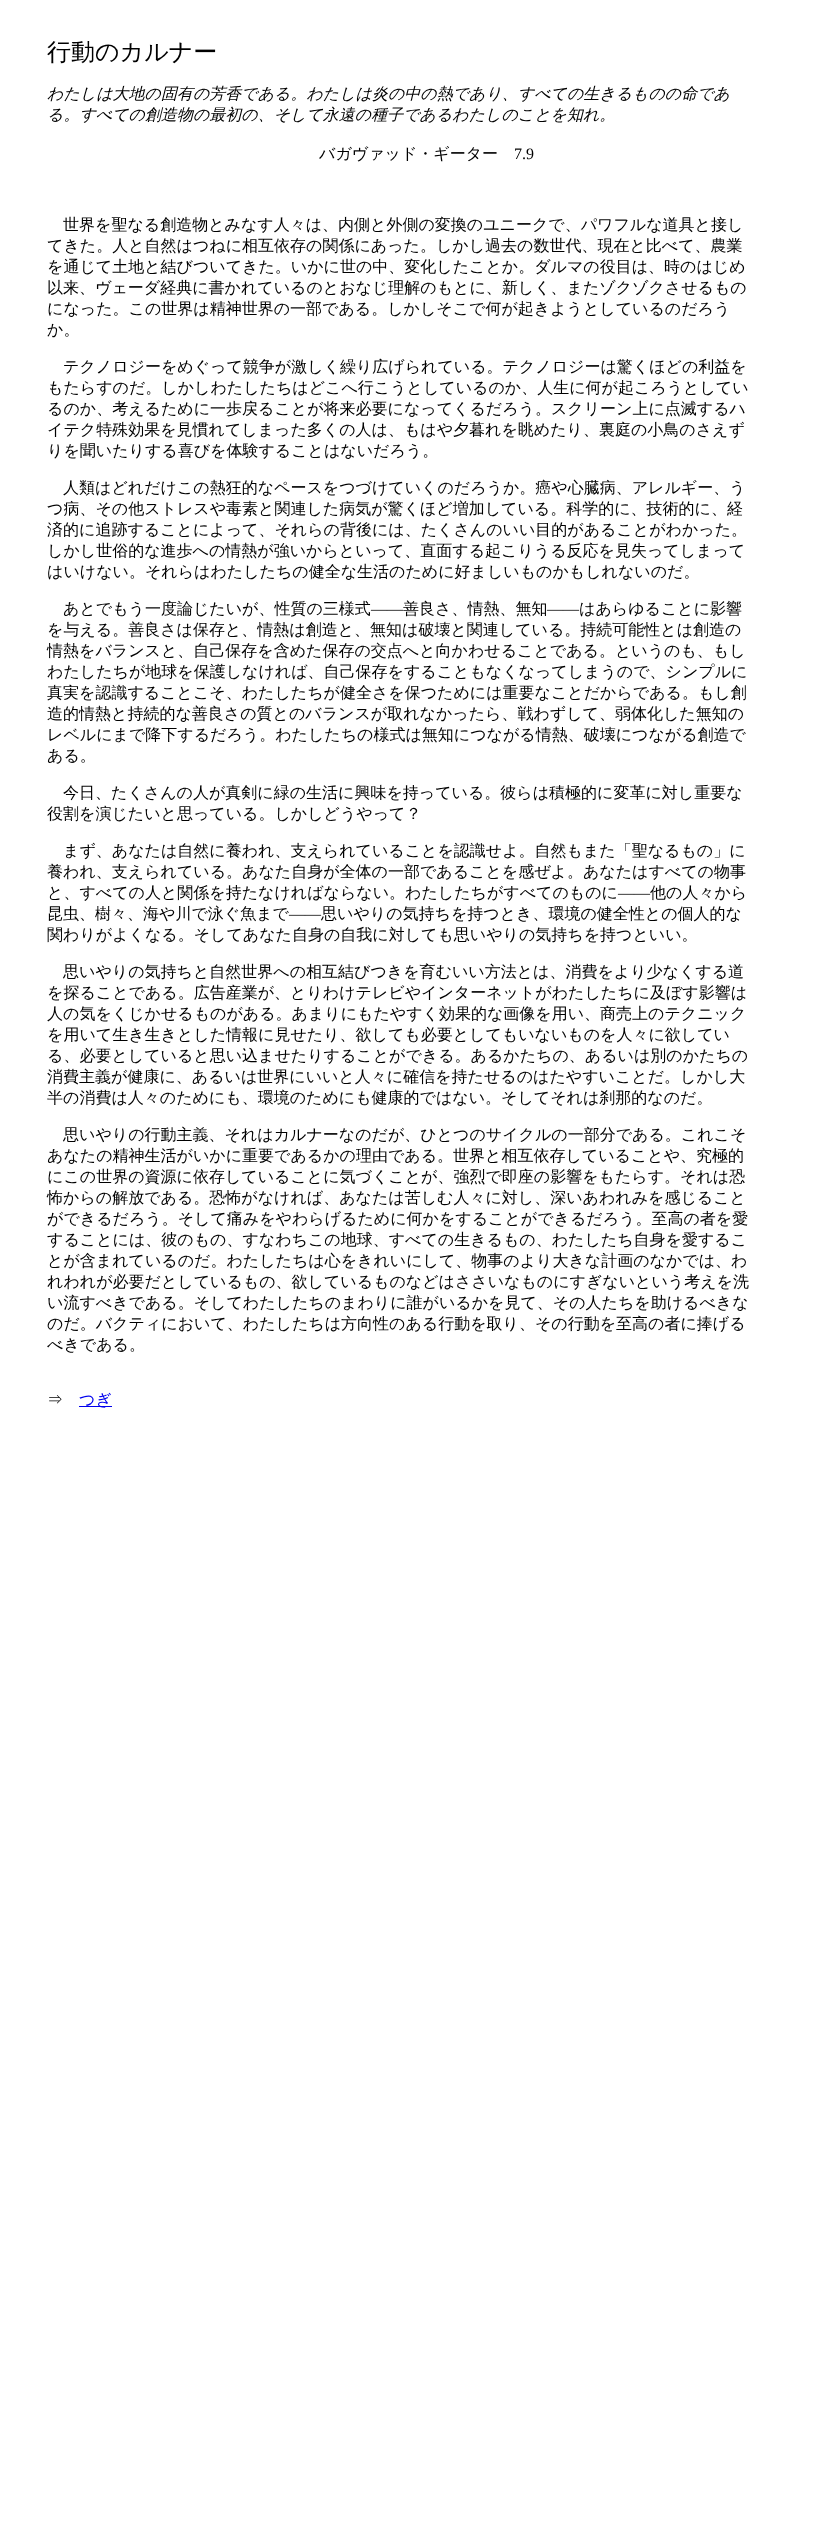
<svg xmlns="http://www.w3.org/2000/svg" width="828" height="2534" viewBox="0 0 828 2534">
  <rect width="100%" height="100%" fill="rgb(255,255,255)"/>
  <text x="47" y="60" font-family="WenQuanYi Zen Hei" font-size="24" font-weight="500" fill="rgb(0,0,0)">行動のカルナー</text>
  <g font-family="WenQuanYi Zen Hei" font-size="16" font-weight="500" font-style="italic" fill="rgb(0,0,0)">
    <text>
      <tspan x="47" y="99">わたしは大地の固有の芳香である。わたしは炎の中の熱であり、すべての生きるものの命であ</tspan>
      <tspan x="47" y="120">る。すべての創造物の最初の、そして永遠の種子であるわたしのことを知れ。</tspan>
    </text>
  </g>
  <text x="319" y="159" font-family="WenQuanYi Zen Hei" font-size="16" font-weight="500" fill="rgb(0,0,0)">バガヴァッド・ギーター</text>
  <text x="514" y="159" font-family="Liberation Serif" font-size="16" fill="rgb(0,0,0)">7.9</text>
  <g font-family="WenQuanYi Zen Hei" font-size="16" font-weight="500" fill="rgb(0,0,0)">
    <text x="63" y="230">世界を聖なる創造物とみなす人々は、内側と外側の変換のユニークで、パワフルな道具と接し</text>
    <text>
      <tspan x="47" y="251">てきた。人と自然はつねに相互依存の関係にあった。しかし過去の数世代、現在と比べて、農業</tspan>
      <tspan x="47" y="272">を通じて土地と結びついてきた。いかに世の中、変化したことか。ダルマの役目は、時のはじめ</tspan>
      <tspan x="47" y="293">以来、ヴェーダ経典に書かれているのとおなじ理解のもとに、新しく、またゾクゾクさせるもの</tspan>
      <tspan x="47" y="314">になった。この世界は精神世界の一部である。しかしそこで何が起きようとしているのだろう</tspan>
      <tspan x="47" y="335">か。</tspan>
    </text>
    <text x="63" y="372">テクノロジーをめぐって競争が激しく繰り広げられている。テクノロジーは驚くほどの利益を</text>
    <text>
      <tspan x="47" y="393">もたらすのだ。しかしわたしたちはどこへ行こうとしているのか、人生に何が起ころうとしてい</tspan>
      <tspan x="47" y="414">るのか、考えるために一歩戻ることが将来必要になってくるだろう。スクリーン上に点滅するハ</tspan>
      <tspan x="47" y="435">イテク特殊効果を見慣れてしまった多くの人は、もはや夕暮れを眺めたり、裏庭の小鳥のさえず</tspan>
      <tspan x="47" y="456">りを聞いたりする喜びを体験することはないだろう。</tspan>
    </text>
    <text x="63" y="493">人類はどれだけこの熱狂的なペースをつづけていくのだろうか。癌や心臓病、アレルギー、う</text>
    <text>
      <tspan x="47" y="514">つ病、その他ストレスや毒素と関連した病気が驚くほど増加している。科学的に、技術的に、経</tspan>
      <tspan x="47" y="535">済的に追跡することによって、それらの背後には、たくさんのいい目的があることがわかった。</tspan>
      <tspan x="47" y="556">しかし世俗的な進歩への情熱が強いからといって、直面する起こりうる反応を見失ってしまって</tspan>
      <tspan x="47" y="577">はいけない。それらはわたしたちの健全な生活のために好ましいものかもしれないのだ。</tspan>
    </text>
    <text x="63" y="614">あとでもう一度論じたいが、性質の三様式</text>
  </g>
  <text x="371" y="614" font-family="Liberation Serif" font-size="16" fill="rgb(0,0,0)">――</text>
  <text x="403" y="614" font-family="WenQuanYi Zen Hei" font-size="16" font-weight="500" fill="rgb(0,0,0)">善良さ、情熱、無知</text>
  <text x="547" y="614" font-family="Liberation Serif" font-size="16" fill="rgb(0,0,0)">――</text>
  <g font-family="WenQuanYi Zen Hei" font-size="16" font-weight="500" fill="rgb(0,0,0)">
    <text x="579" y="614">はあらゆることに影響</text>
    <text>
      <tspan x="47" y="635">を与える。善良さは保存と、情熱は創造と、無知は破壊と関連している。持続可能性とは創造の</tspan>
      <tspan x="47" y="656">情熱をバランスと、自己保存を含めた保存の交点へと向かわせることである。というのも、もし</tspan>
      <tspan x="47" y="677">わたしたちが地球を保護しなければ、自己保存をすることもなくなってしまうので、シンプルに</tspan>
      <tspan x="47" y="698">真実を認識することこそ、わたしたちが健全さを保つためには重要なことだからである。もし創</tspan>
      <tspan x="47" y="719">造的情熱と持続的な善良さの質とのバランスが取れなかったら、戦わずして、弱体化した無知の</tspan>
      <tspan x="47" y="740">レベルにまで降下するだろう。わたしたちの様式は無知につながる情熱、破壊につながる創造で</tspan>
      <tspan x="47" y="761">ある。</tspan>
    </text>
    <text x="63" y="798">今日、たくさんの人が真剣に緑の生活に興味を持っている。彼らは積極的に変革に対し重要な</text>
    <text x="47" y="819">役割を演じたいと思っている。しかしどうやって？</text>
    <text x="63" y="856">まず、あなたは自然に養われ、支えられていることを認識せよ。自然もまた「聖なるもの」に</text>
    <text>
      <tspan x="47" y="877">養われ、支えられている。あなた自身が全体の一部であることを感ぜよ。あなたはすべての物事</tspan>
      <tspan x="47" y="898">と、すべての人と関係を持たなければならない。わたしたちがすべてのものに</tspan>
    </text>
  </g>
  <text x="618" y="898" font-family="Liberation Serif" font-size="16" fill="rgb(0,0,0)">――</text>
  <g font-family="WenQuanYi Zen Hei" font-size="16" font-weight="500" fill="rgb(0,0,0)">
    <text x="650" y="898">他の人々から</text>
    <text x="47" y="919">昆虫、樹々、海や川で泳ぐ魚まで</text>
  </g>
  <text x="289" y="919" font-family="Liberation Serif" font-size="16" fill="rgb(0,0,0)">――</text>
  <g font-family="WenQuanYi Zen Hei" font-size="16" font-weight="500" fill="rgb(0,0,0)">
    <text x="321" y="919">思いやりの気持ちを持つとき、環境の健全性との個人的な</text>
    <text x="47" y="940">関わりがよくなる。そしてあなた自身の自我に対しても思いやりの気持ちを持つといい。</text>
    <text x="63" y="977">思いやりの気持ちと自然世界への相互結びつきを育むいい方法とは、消費をより少なくする道</text>
    <text>
      <tspan x="47" y="998">を探ることである。広告産業が、とりわけテレビやインターネットがわたしたちに及ぼす影響は</tspan>
      <tspan x="47" y="1019">人の気をくじかせるものがある。あまりにもたやすく効果的な画像を用い、商売上のテクニック</tspan>
      <tspan x="47" y="1040">を用いて生き生きとした情報に見せたり、欲しても必要としてもいないものを人々に欲してい</tspan>
      <tspan x="47" y="1061">る、必要としていると思い込ませたりすることができる。あるかたちの、あるいは別のかたちの</tspan>
      <tspan x="47" y="1082">消費主義が健康に、あるいは世界にいいと人々に確信を持たせるのはたやすいことだ。しかし大</tspan>
      <tspan x="47" y="1103">半の消費は人々のためにも、環境のためにも健康的ではない。そしてそれは刹那的なのだ。</tspan>
    </text>
    <text x="63" y="1140">思いやりの行動主義、それはカルナーなのだが、ひとつのサイクルの一部分である。これこそ</text>
    <text>
      <tspan x="47" y="1161">あなたの精神生活がいかに重要であるかの理由である。世界と相互依存していることや、究極的</tspan>
      <tspan x="47" y="1182">にこの世界の資源に依存していることに気づくことが、強烈で即座の影響をもたらす。それは恐</tspan>
      <tspan x="47" y="1203">怖からの解放である。恐怖がなければ、あなたは苦しむ人々に対し、深いあわれみを感じること</tspan>
      <tspan x="47" y="1224">ができるだろう。そして痛みをやわらげるために何かをすることができるだろう。至高の者を愛</tspan>
      <tspan x="47" y="1245">することには、彼のもの、すなわちこの地球、すべての生きるもの、わたしたち自身を愛するこ</tspan>
      <tspan x="47" y="1266">とが含まれているのだ。わたしたちは心をきれいにして、物事のより大きな計画のなかでは、わ</tspan>
      <tspan x="47" y="1287">れわれが必要だとしているもの、欲しているものなどはささいなものにすぎないという考えを洗</tspan>
      <tspan x="47" y="1308">い流すべきである。そしてわたしたちのまわりに誰がいるかを見て、その人たちを助けるべきな</tspan>
      <tspan x="47" y="1329">のだ。バクティにおいて、わたしたちは方向性のある行動を取り、その行動を至高の者に捧げる</tspan>
      <tspan x="47" y="1350">べきである。</tspan>
    </text>
    <text x="47" y="1405">⇒</text>
  </g>
  <rect x="79" y="1406" width="33" height="1" fill="rgb(0,0,238)"/>
  <text x="79" y="1405" font-family="WenQuanYi Zen Hei" font-size="16" font-weight="500" fill="rgb(0,0,238)">つぎ</text>
</svg>
